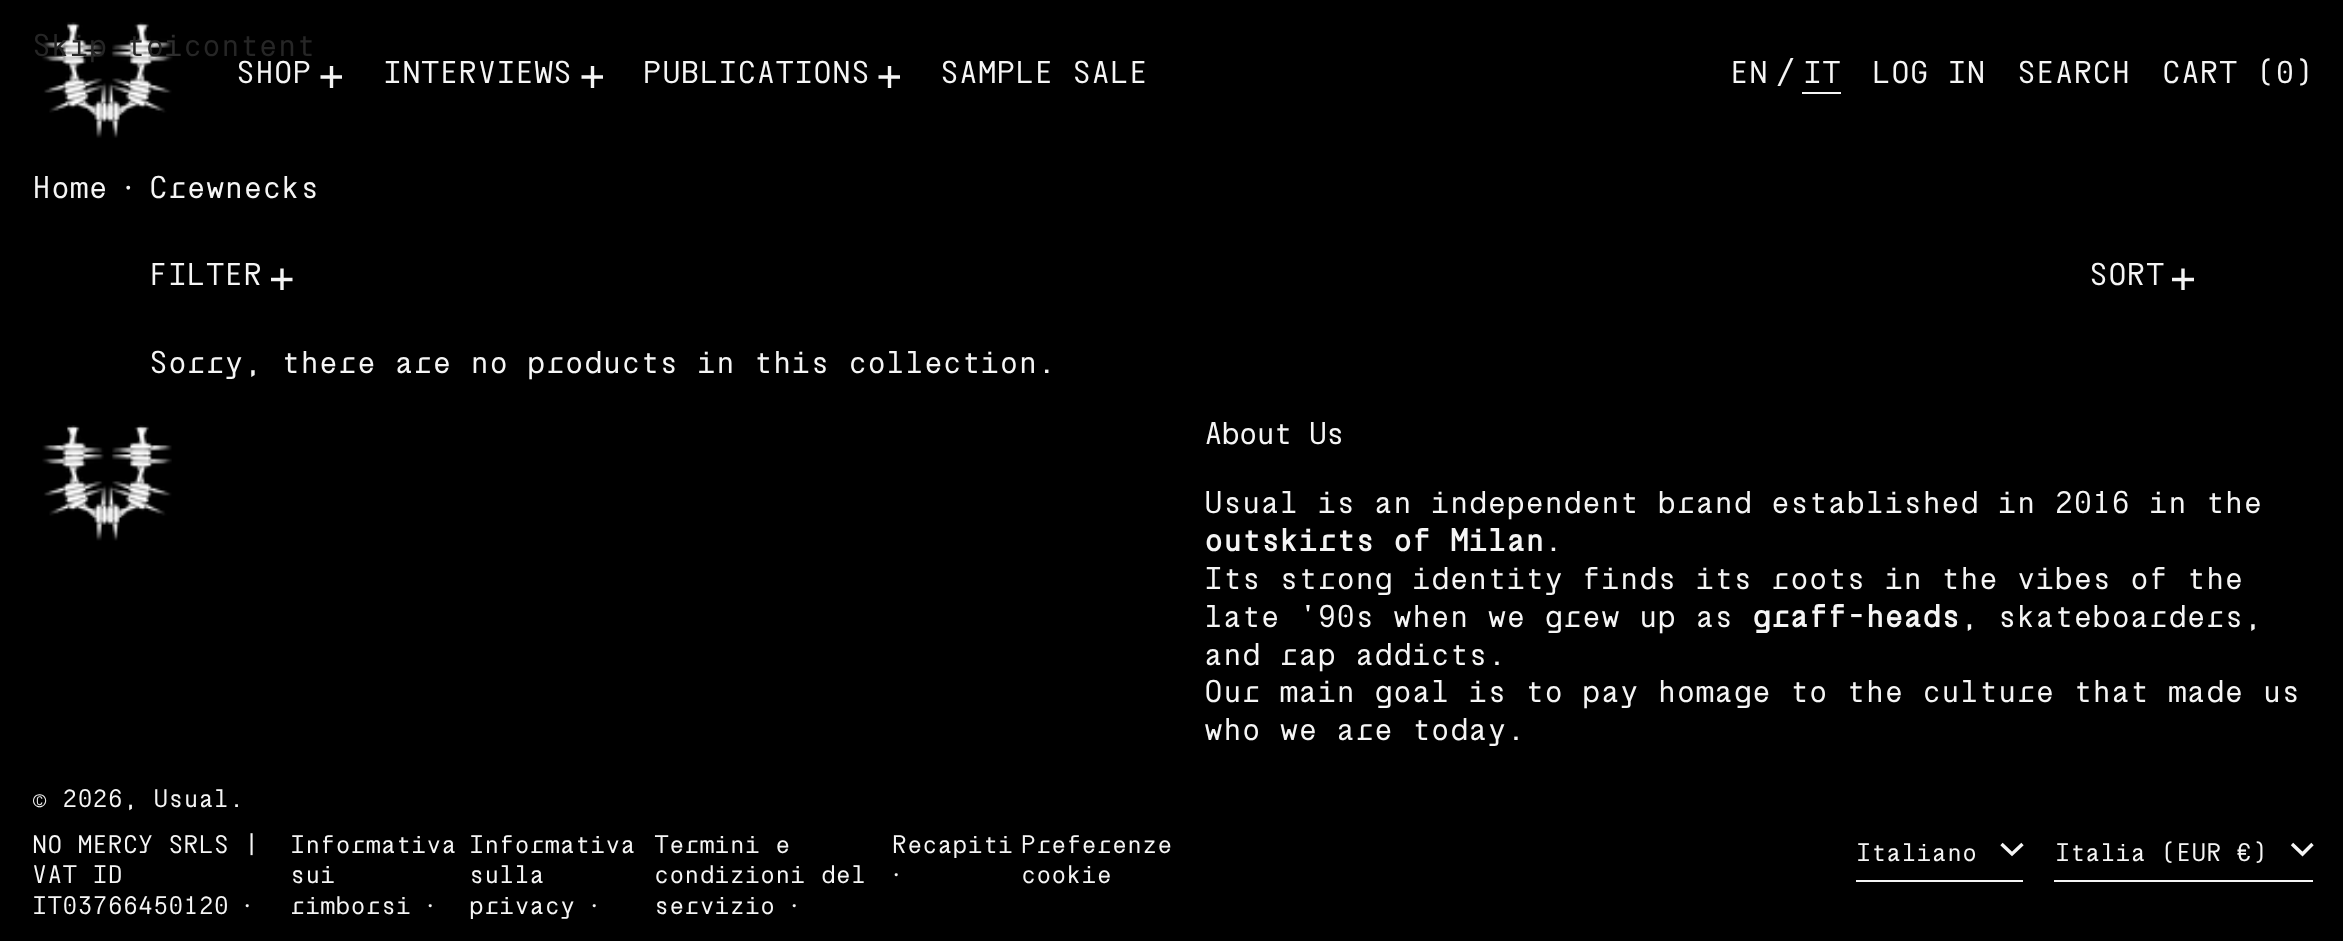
<svg xmlns="http://www.w3.org/2000/svg" width="2343" height="941" viewBox="0 0 2343 941">
  <defs>
    <clipPath id="clip1"><rect x="270" y="268" width="25" height="22"/></clipPath>
    <clipPath id="clip2"><rect x="2171" y="268" width="25" height="22"/></clipPath>
  </defs>
  <rect width="100%" height="100%" fill="rgb(0,0,0)"/>
  <image x="42" y="22" width="131" height="116" href="pic1.png"/>
  <text x="32" y="56" font-family="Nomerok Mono" font-size="31.5" fill="rgb(38,38,38)">Skip to content</text>
  <text x="164" y="56" font-family="Nomerok Mono" font-size="31.5" fill="rgb(46,46,46)">i</text>
  <text x="149" y="285" font-family="Nomerok Mono" font-size="31.5" fill="rgb(245,245,245)">FILTER</text>
  <g clip-path="url(#clip1)">
    <path d="M282 268.5V290.5M271 279.5H292.5" fill="none" stroke="rgb(245,245,245)" stroke-width="3.4"/>
  </g>
  <text x="2089" y="285" font-family="Nomerok Mono" font-size="31.5" fill="rgb(245,245,245)">SORT</text>
  <g clip-path="url(#clip2)">
    <path d="M2183 268.5V290.5M2172 279.5H2194" fill="none" stroke="rgb(245,245,245)" stroke-width="3.4"/>
  </g>
  <g font-family="Nomerok Mono" font-size="31.5" fill="rgb(245,245,245)">
    <text x="149" y="373">Sorry, there are no products in this collection.</text>
    <text x="236" y="83">SHOP</text>
  </g>
  <path d="M331.5 66V88M320.5 77H342" fill="none" stroke="rgb(245,245,245)" stroke-width="3.4"/>
  <text x="383" y="83" font-family="Nomerok Mono" font-size="31.5" fill="rgb(245,245,245)">INTERVIEWS</text>
  <path d="M592.5 66V88M581.5 77H603" fill="none" stroke="rgb(245,245,245)" stroke-width="3.4"/>
  <text x="643" y="83" font-family="Nomerok Mono" font-size="31.5" fill="rgb(245,245,245)">PUBLICATIONS</text>
  <path d="M889.5 66V88M878.5 77H900" fill="none" stroke="rgb(245,245,245)" stroke-width="3.4"/>
  <g font-family="Nomerok Mono" font-size="31.5" fill="rgb(245,245,245)">
    <text x="940" y="83">SAMPLE SALE</text>
    <text x="1730" y="83">EN</text>
    <text x="1776" y="83">/</text>
    <text x="1803" y="83">IT</text>
  </g>
  <rect x="1802" y="92" width="39" height="2" fill="rgb(245,245,245)"/>
  <g font-family="Nomerok Mono" font-size="31.5" fill="rgb(245,245,245)">
    <text x="1872" y="83">LOG IN</text>
    <text x="2017" y="83">SEARCH</text>
    <text x="2162" y="83">CART (0)</text>
    <text x="32" y="198">Home</text>
  </g>
  <text x="123" y="198" font-family="Liberation Serif" font-size="31.5" fill="rgb(245,245,245)">·</text>
  <text x="149" y="198" font-family="Nomerok Mono" font-size="31.5" fill="rgb(245,245,245)">Crewnecks</text>
  <image x="42" y="425" width="130" height="116" href="pic2.png"/>
  <text x="1204" y="444" font-family="Nomerok Mono" font-size="31.5" letter-spacing="-1.5" fill="rgb(245,245,245)">About Us</text>
  <text x="1204" y="513" font-family="Nomerok Mono" font-size="31.5" fill="rgb(245,245,245)">Usual is an independent brand established in 2016 in the</text>
  <text x="1204" y="551" font-family="Nomerok Mono" font-size="31.5" font-weight="bold" fill="rgb(245,245,245)">outskirts of Milan</text>
  <g font-family="Nomerok Mono" font-size="31.5" fill="rgb(245,245,245)">
    <text x="1544" y="551">.</text>
    <text>
      <tspan x="1204" y="589">Its strong identity finds its roots in the vibes of the</tspan>
      <tspan x="1204" y="627">late '90s when we grew up as</tspan>
    </text>
  </g>
  <text x="1752" y="627" font-family="Nomerok Mono" font-size="31.5" font-weight="bold" fill="rgb(245,245,245)">graff-heads</text>
  <g font-family="Nomerok Mono" font-size="31.5" fill="rgb(245,245,245)">
    <text x="1960" y="627">, skateboarders,</text>
    <text>
      <tspan x="1204" y="665">and rap addicts.</tspan>
      <tspan x="1204" y="702">Our main goal is to pay homage to the culture that made us</tspan>
      <tspan x="1204" y="740">who we are today.</tspan>
    </text>
  </g>
  <g font-family="Nomerok Mono" font-size="25.25" fill="rgb(245,245,245)">
    <text>
      <tspan x="32" y="807">© 2026, Usual.</tspan>
      <tspan x="32" y="853">NO MERCY SRLS |</tspan>
      <tspan x="32" y="883">VAT ID</tspan>
      <tspan x="32" y="914">IT03766450120</tspan>
    </text>
  </g>
  <text x="243" y="914" font-family="Liberation Serif" font-size="25.25" fill="rgb(245,245,245)">·</text>
  <g font-family="Nomerok Mono" font-size="25.25" fill="rgb(245,245,245)">
    <text>
      <tspan x="290" y="853">Informativa</tspan>
      <tspan x="290" y="883">sui</tspan>
      <tspan x="290" y="914">rimborsi</tspan>
    </text>
  </g>
  <text x="426" y="914" font-family="Liberation Serif" font-size="25.25" fill="rgb(245,245,245)">·</text>
  <g font-family="Nomerok Mono" font-size="25.25" fill="rgb(245,245,245)">
    <text>
      <tspan x="469" y="853">Informativa</tspan>
      <tspan x="469" y="883">sulla</tspan>
      <tspan x="469" y="914">privacy</tspan>
    </text>
  </g>
  <text x="590" y="914" font-family="Liberation Serif" font-size="25.25" fill="rgb(245,245,245)">·</text>
  <g font-family="Nomerok Mono" font-size="25.25" fill="rgb(245,245,245)">
    <text>
      <tspan x="654" y="853">Termini e</tspan>
      <tspan x="654" y="883">condizioni del</tspan>
      <tspan x="654" y="914">servizio</tspan>
    </text>
  </g>
  <text x="790" y="914" font-family="Liberation Serif" font-size="25.25" fill="rgb(245,245,245)">·</text>
  <text x="892" y="853" font-family="Nomerok Mono" font-size="25.25" fill="rgb(245,245,245)">Recapiti</text>
  <text x="892" y="883" font-family="Liberation Serif" font-size="25.25" fill="rgb(245,245,245)">·</text>
  <g font-family="Nomerok Mono" font-size="25.25" fill="rgb(245,245,245)">
    <text>
      <tspan x="1021" y="853">Preferenze</tspan>
      <tspan x="1021" y="883">cookie</tspan>
    </text>
  </g>
  <rect x="1856" y="880" width="167" height="2" fill="rgb(245,245,245)"/>
  <text x="1856" y="861" font-family="Nomerok Mono" font-size="25.25" fill="rgb(245,245,245)">Italiano</text>
  <path d="M2001.5 844L2012 854L2022.5 844" fill="none" stroke="rgb(245,245,245)" stroke-width="3.4"/>
  <rect x="2054" y="880" width="259" height="2" fill="rgb(245,245,245)"/>
  <text x="2055" y="861" font-family="Nomerok Mono" font-size="25.25" fill="rgb(245,245,245)">Italia (EUR €)</text>
  <path d="M2292 844L2302.5 854L2312.5 844" fill="none" stroke="rgb(245,245,245)" stroke-width="3.4"/>
</svg>
